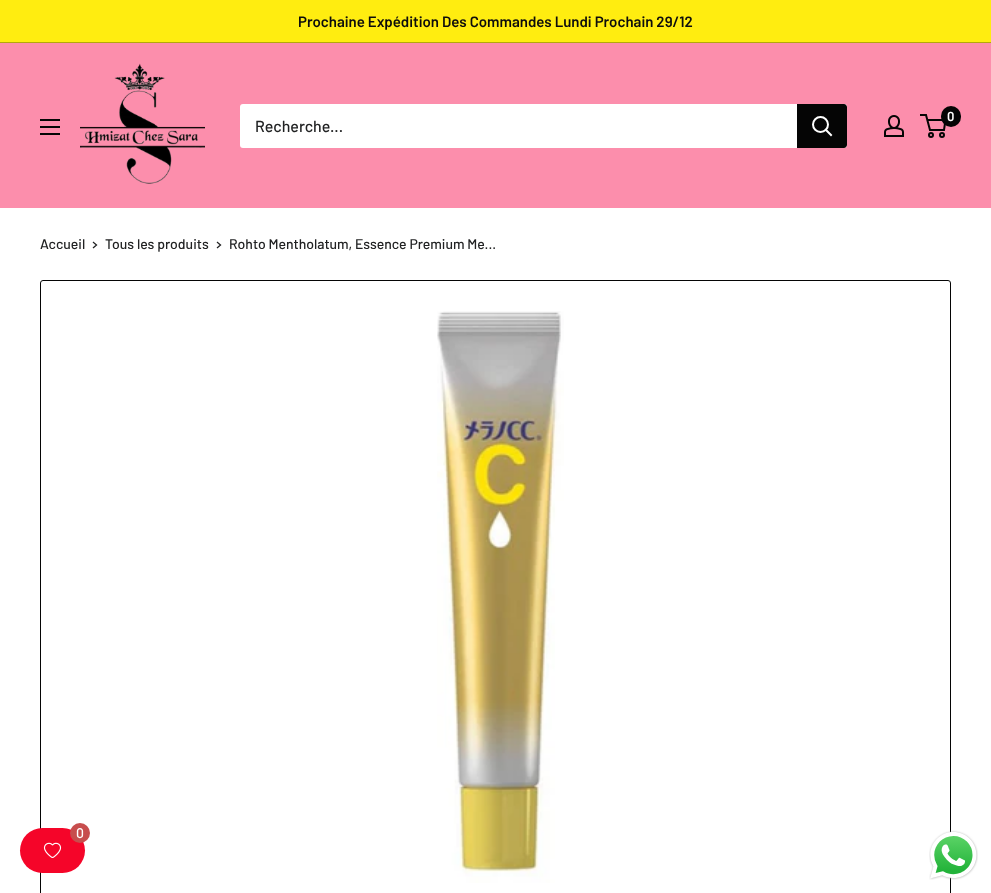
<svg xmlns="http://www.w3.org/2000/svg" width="991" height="893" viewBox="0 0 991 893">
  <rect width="100%" height="100%" fill="rgb(255,255,255)"/>
  <rect x="0" y="0" width="991" height="42" fill="rgb(255,237,16)"/>
  <rect x="0" y="42" width="991" height="1" fill="rgb(180,167,13)"/>
  <text x="298" y="27" font-family="Barlow" font-size="15" font-weight="600" fill="rgb(13,13,13)">Prochaine Expédition Des Commandes Lundi Prochain 29/12</text>
  <rect x="0" y="43" width="991" height="165" fill="rgb(252,142,172)"/>
  <image x="80" y="63" width="125" height="121" href="pic1.png"/>
  <image x="884" y="115" width="20" height="22" href="pic2.png"/>
  <circle cx="931" cy="135" r="2" fill="none" stroke="rgb(5,5,5)" stroke-width="2"/>
  <circle cx="942" cy="135" r="2" fill="none" stroke="rgb(5,5,5)" stroke-width="2"/>
  <path d="M927.5 120H945.5L944 130H930L926 115H920" fill="none" stroke="rgb(5,5,5)" stroke-width="2"/>
  <rect x="941" y="106" width="20" height="21" rx="10" fill="rgb(5,5,5)"/>
  <text x="947" y="121" font-family="Barlow" font-size="13" font-weight="600" fill="rgb(255,255,255)">0</text>
  <image x="40" y="119" width="20" height="16" href="pic3.png"/>
  <rect x="240" y="104" width="607" height="44" rx="3" fill="rgb(255,255,255)"/>
  <text x="255" y="132" font-family="Barlow" font-size="16" font-weight="500" fill="rgb(33,34,35)">Recherche...</text>
  <path d="M797 104H844C845.5 104 847 105.5 847 107V145C847 146.5 845.5 148 844 148H797Z" fill="rgb(5,5,5)"/>
  <path d="M831 135L826 130" fill="none" stroke="rgb(255,255,255)" stroke-width="2" stroke-linecap="square"/>
  <circle cx="820.5" cy="124.5" r="7.5" fill="none" stroke="rgb(255,255,255)" stroke-width="2"/>
  <text x="40" y="249" font-family="Barlow" font-size="14" font-weight="500" fill="rgb(33,34,35)">Accueil</text>
  <path d="M93.5 242.5L96.5 245L93.5 247.5" fill="none" stroke="rgb(33,34,35)" stroke-width="1.3" stroke-linecap="square"/>
  <text x="105" y="249" font-family="Barlow" font-size="14" font-weight="500" fill="rgb(33,34,35)">Tous les produits</text>
  <path d="M217.5 242.5L220.5 245L217.5 247.5" fill="none" stroke="rgb(33,34,35)" stroke-width="1.3" stroke-linecap="square"/>
  <text x="229" y="249" font-family="Barlow" font-size="14" font-weight="500" fill="rgb(33,34,35)">Rohto Mentholatum, Essence Premium Me...</text>
  <rect x="40.5" y="280.5" width="910" height="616" rx="2.5" fill="none" stroke="rgb(5,5,5)"/>
  <image x="437" y="311" width="127" height="572" href="pic4.png"/>
  <rect x="20" y="828" width="65" height="45" rx="22.5" fill="rgb(245,5,41)"/>
  <circle cx="80" cy="833" r="10" fill="rgb(199,77,77)"/>
  <text x="76" y="838" font-family="Barlow" font-size="14" font-weight="500" fill="rgb(255,255,255)">0</text>
  <image x="43" y="842" width="19" height="16" href="pic5.png"/>
  <image x="929" y="830" width="49" height="50" href="pic6.png"/>
</svg>
